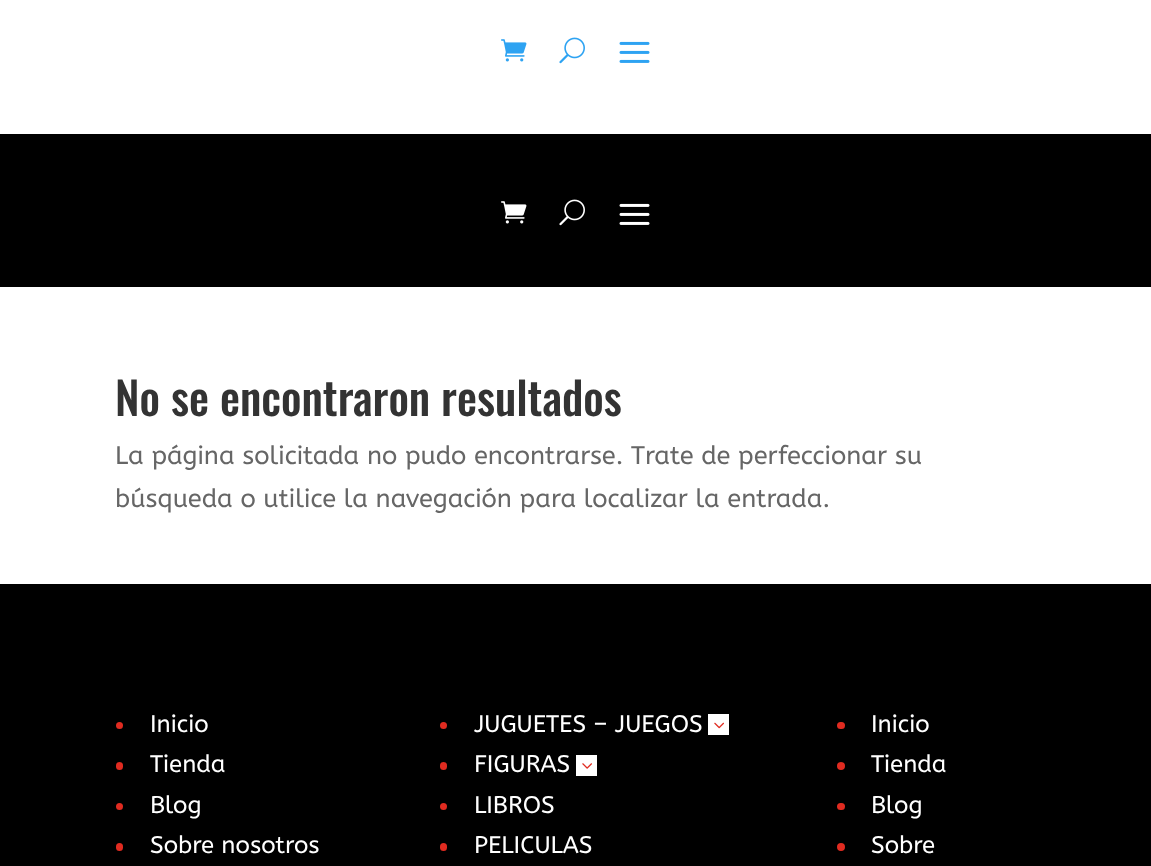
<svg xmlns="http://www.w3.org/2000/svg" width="1151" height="866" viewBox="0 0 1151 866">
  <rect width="100%" height="100%" fill="rgb(255,255,255)"/>
  <image x="501" y="39" width="26" height="23" href="pic1.png"/>
  <image x="559" y="37" width="26" height="27" href="pic2.png"/>
  <image x="619" y="41" width="31" height="22" href="pic3.png"/>
  <rect x="0" y="134" width="1151" height="153" fill="rgb(0,0,0)"/>
  <image x="501" y="201" width="26" height="23" href="pic4.png"/>
  <image x="559" y="199" width="26" height="27" href="pic5.png"/>
  <image x="619" y="203" width="31" height="22" href="pic6.png"/>
  <text x="115" y="416" font-family="Oswald" font-size="45" font-weight="500" fill="rgb(51,51,51)">No se encontraron resultados</text>
  <g font-family="ABeeZee" font-size="25.5" fill="rgb(102,102,102)">
    <text>
      <tspan x="115" y="464">La página solicitada no pudo encontrarse. Trate de perfeccionar su</tspan>
      <tspan x="115" y="507">búsqueda o utilice la navegación para localizar la entrada.</tspan>
    </text>
  </g>
  <rect x="0" y="584" width="1151" height="282" fill="rgb(0,0,0)"/>
  <circle cx="119.5" cy="725.5" r="3.5" fill="rgb(224,43,32)"/>
  <text x="150" y="732" font-family="ABeeZee" font-size="24" fill="rgb(255,255,255)">Inicio</text>
  <rect x="116" y="762" width="7" height="8" rx="3.5" fill="rgb(224,43,32)"/>
  <text x="150" y="772" font-family="ABeeZee" font-size="24" fill="rgb(255,255,255)">Tienda</text>
  <circle cx="119.5" cy="806.5" r="3.5" fill="rgb(224,43,32)"/>
  <text x="150" y="813" font-family="ABeeZee" font-size="24" fill="rgb(255,255,255)">Blog</text>
  <rect x="116" y="843" width="7" height="8" rx="3.5" fill="rgb(224,43,32)"/>
  <text x="150" y="853" font-family="ABeeZee" font-size="24" fill="rgb(255,255,255)">Sobre nosotros</text>
  <circle cx="443.5" cy="725.5" r="3.5" fill="rgb(224,43,32)"/>
  <text x="474" y="732" font-family="ABeeZee" font-size="24" fill="rgb(255,255,255)">JUGUETES – JUEGOS</text>
  <rect x="708" y="714" width="21" height="21" fill="rgb(255,255,255)"/>
  <image x="714" y="722" width="10" height="7" href="pic7.png"/>
  <rect x="440" y="762" width="7" height="8" rx="3.5" fill="rgb(224,43,32)"/>
  <text x="474" y="772" font-family="ABeeZee" font-size="24" fill="rgb(255,255,255)">FIGURAS</text>
  <rect x="576" y="755" width="21" height="21" fill="rgb(255,255,255)"/>
  <image x="582" y="763" width="10" height="6" href="pic8.png"/>
  <circle cx="443.5" cy="806.5" r="3.5" fill="rgb(224,43,32)"/>
  <text x="474" y="813" font-family="ABeeZee" font-size="24" fill="rgb(255,255,255)">LIBROS</text>
  <rect x="440" y="843" width="7" height="8" rx="3.5" fill="rgb(224,43,32)"/>
  <text x="474" y="853" font-family="ABeeZee" font-size="24" fill="rgb(255,255,255)">PELICULAS</text>
  <rect x="837" y="722" width="8" height="7" rx="3.5" fill="rgb(224,43,32)"/>
  <text x="871" y="732" font-family="ABeeZee" font-size="24" fill="rgb(255,255,255)">Inicio</text>
  <circle cx="841" cy="766" r="4" fill="rgb(224,43,32)"/>
  <text x="871" y="772" font-family="ABeeZee" font-size="24" fill="rgb(255,255,255)">Tienda</text>
  <rect x="837" y="803" width="8" height="7" rx="3.5" fill="rgb(224,43,32)"/>
  <text x="871" y="813" font-family="ABeeZee" font-size="24" fill="rgb(255,255,255)">Blog</text>
  <circle cx="841" cy="847" r="4" fill="rgb(224,43,32)"/>
  <text x="871" y="853" font-family="ABeeZee" font-size="24" fill="rgb(255,255,255)">Sobre</text>
</svg>
